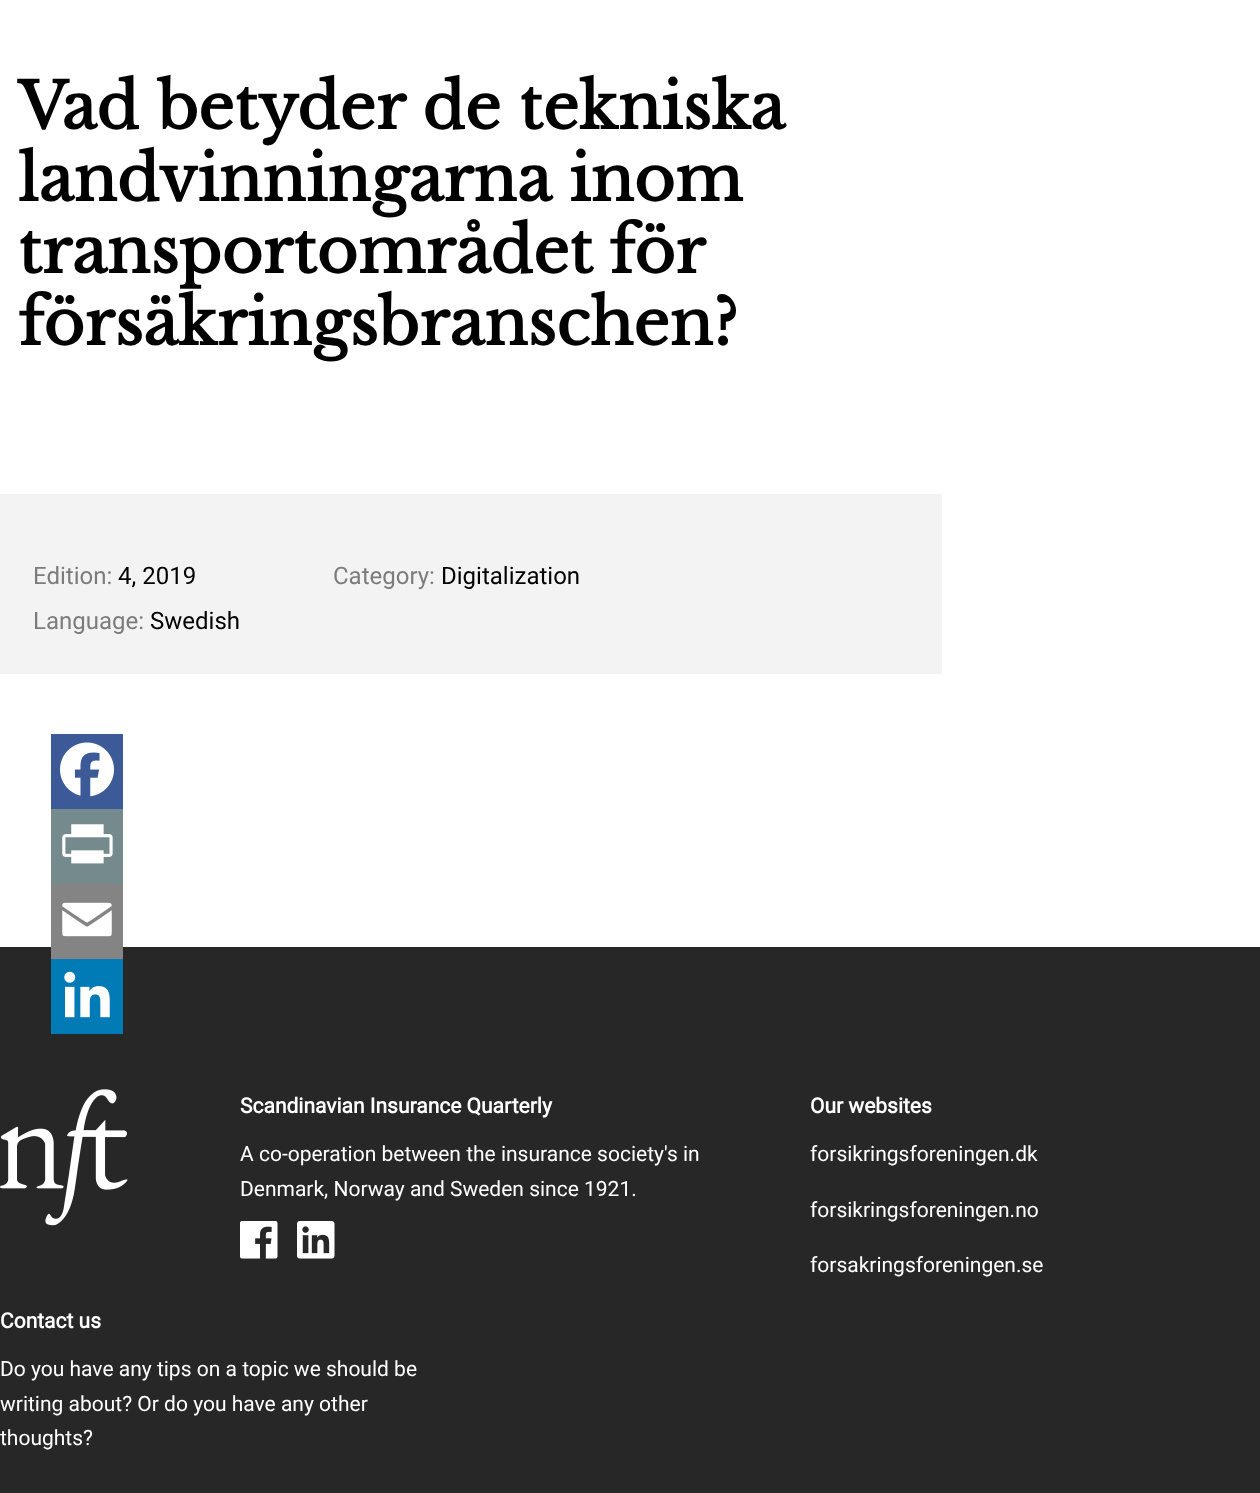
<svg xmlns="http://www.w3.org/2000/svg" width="1260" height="1493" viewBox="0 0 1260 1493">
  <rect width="100%" height="100%" fill="rgb(255,255,255)"/>
  <g font-family="Libre Baskerville" font-size="63" font-weight="bold" fill="rgb(0,0,0)">
    <text>
      <tspan x="18" y="129">Vad betyder de tekniska</tspan>
      <tspan x="18" y="201">landvinningarna inom</tspan>
      <tspan x="18" y="273" word-spacing="-2">transportområdet för</tspan>
      <tspan x="18" y="345">försäkringsbranschen?</tspan>
    </text>
  </g>
  <rect x="0" y="494" width="942" height="180" fill="rgb(243,243,243)"/>
  <text x="33" y="584" font-family="Roboto" font-size="24" fill="rgb(124,124,124)">Edition:</text>
  <text x="118" y="584" font-family="Roboto" font-size="24" fill="rgb(0,0,0)">4, 2019</text>
  <text x="33" y="629" font-family="Roboto" font-size="24" fill="rgb(124,124,124)">Language:</text>
  <text x="150" y="629" font-family="Roboto" font-size="24" fill="rgb(0,0,0)">Swedish</text>
  <text x="333" y="584" font-family="Roboto" font-size="24" fill="rgb(124,124,124)">Category:</text>
  <text x="441" y="584" font-family="Roboto" font-size="24" fill="rgb(0,0,0)">Digitalization</text>
  <rect x="51" y="734" width="72" height="75" fill="rgb(60,90,152)"/>
  <image x="60" y="742" width="54" height="55" href="pic1.png"/>
  <rect x="51" y="809" width="72" height="75" fill="rgb(116,138,141)"/>
  <image x="62" y="824" width="51" height="40" href="pic2.png"/>
  <rect x="0" y="947" width="1260" height="546" fill="rgb(39,39,39)"/>
  <rect x="51" y="884" width="72" height="75" fill="rgb(132,132,132)"/>
  <image x="62" y="902" width="50" height="35" href="pic3.png"/>
  <rect x="51" y="959" width="72" height="75" fill="rgb(0,123,181)"/>
  <image x="64" y="971" width="46" height="47" href="pic4.png"/>
  <image x="0" y="1089" width="128" height="137" href="pic5.png"/>
  <text x="240" y="1113" font-family="Roboto" font-size="21" font-weight="bold" fill="rgb(255,255,255)">Scandinavian Insurance Quarterly</text>
  <g font-family="Roboto" font-size="21" fill="rgb(255,255,255)">
    <text>
      <tspan x="240" y="1161">A co-operation between the insurance society's in</tspan>
      <tspan x="240" y="1196">Denmark, Norway and Sweden since 1921.</tspan>
    </text>
  </g>
  <image x="240" y="1221" width="38" height="38" href="pic6.png"/>
  <image x="297" y="1221" width="38" height="38" href="pic7.png"/>
  <text x="810" y="1113" font-family="Roboto" font-size="21" font-weight="bold" fill="rgb(255,255,255)">Our websites</text>
  <g font-family="Roboto" font-size="21" fill="rgb(255,255,255)">
    <text x="810" y="1161">forsikringsforeningen.dk</text>
    <text x="810" y="1217">forsikringsforeningen.no</text>
    <text x="810" y="1272">forsakringsforeningen.se</text>
  </g>
  <text x="0" y="1328" font-family="Roboto" font-size="21" font-weight="bold" fill="rgb(255,255,255)">Contact us</text>
  <g font-family="Roboto" font-size="21" fill="rgb(255,255,255)">
    <text>
      <tspan x="0" y="1376">Do you have any tips on a topic we should be</tspan>
      <tspan x="0" y="1411">writing about? Or do you have any other</tspan>
      <tspan x="0" y="1445">thoughts?</tspan>
    </text>
  </g>
</svg>
